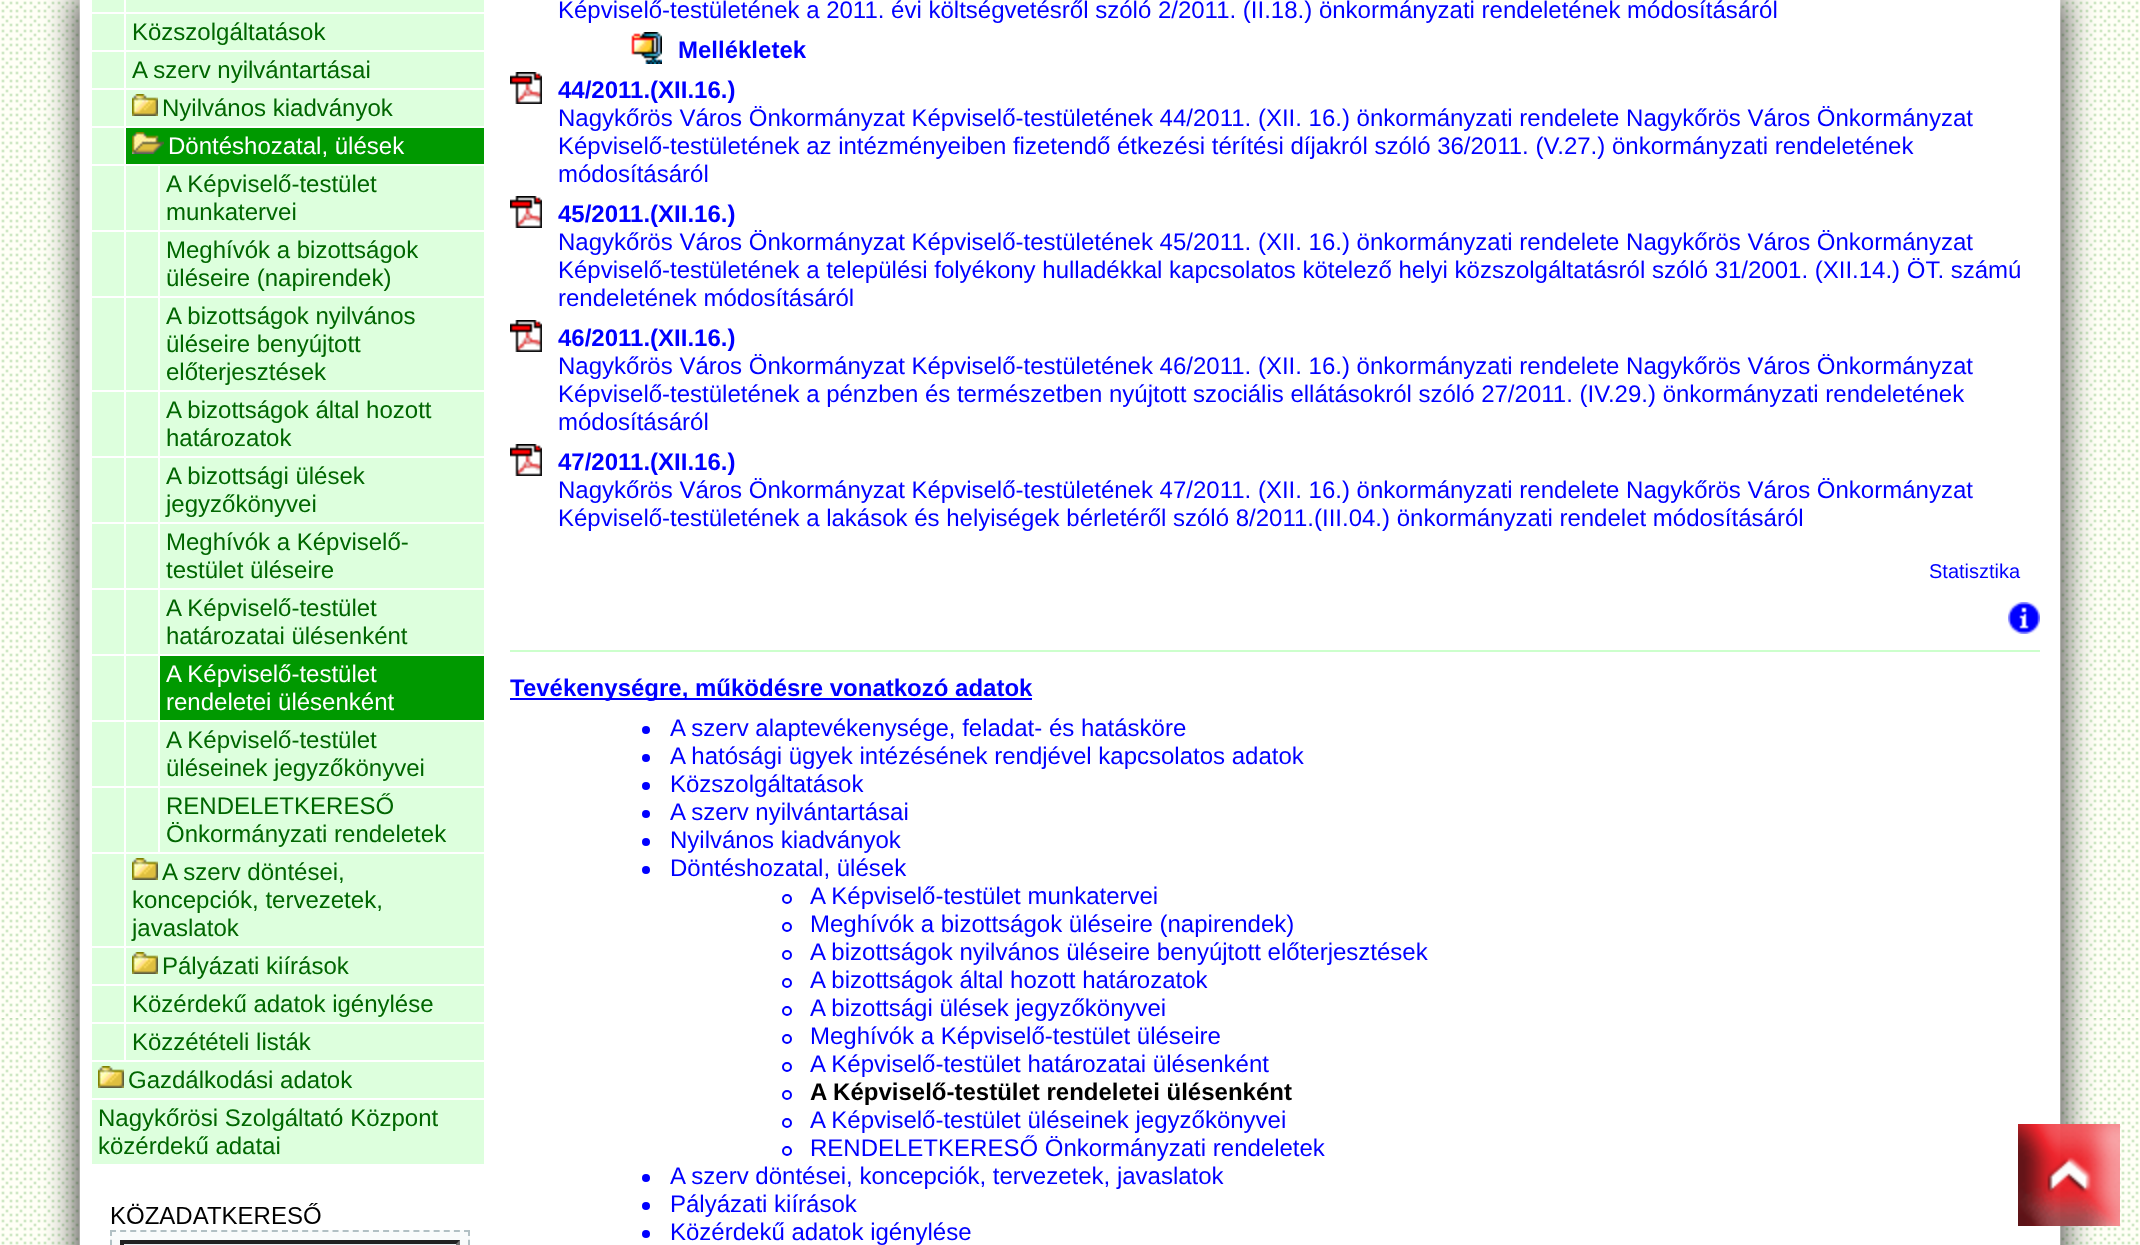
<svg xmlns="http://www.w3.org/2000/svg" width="2140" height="1245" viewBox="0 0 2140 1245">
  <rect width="100%" height="100%" fill="rgb(255,255,255)"/>
  <image x="0" y="0" width="2140" height="1245" href="pic1.png"/>
  <rect x="80" y="0" width="1980" height="1245" fill="rgb(255,255,255)"/>
  <rect x="92" y="0" width="32" height="12" fill="rgb(221,255,221)"/>
  <rect x="126" y="0" width="358" height="12" fill="rgb(221,255,221)"/>
  <rect x="92" y="14" width="32" height="36" fill="rgb(221,255,221)"/>
  <rect x="126" y="14" width="358" height="36" fill="rgb(221,255,221)"/>
  <text x="132" y="40" font-family="Liberation Sans" font-size="24" fill="rgb(0,102,0)">Közszolgáltatások</text>
  <rect x="92" y="52" width="32" height="36" fill="rgb(221,255,221)"/>
  <rect x="126" y="52" width="358" height="36" fill="rgb(221,255,221)"/>
  <text x="132" y="78" font-family="Liberation Sans" font-size="24" fill="rgb(0,102,0)">A szerv nyilvántartásai</text>
  <rect x="92" y="90" width="32" height="36" fill="rgb(221,255,221)"/>
  <rect x="126" y="90" width="358" height="36" fill="rgb(221,255,221)"/>
  <image x="132" y="94" width="26" height="22" href="pic2.png"/>
  <text x="162" y="116" font-family="Liberation Sans" font-size="24" fill="rgb(0,102,0)">Nyilvános kiadványok</text>
  <rect x="92" y="128" width="32" height="36" fill="rgb(221,255,221)"/>
  <rect x="126" y="128" width="358" height="36" fill="rgb(0,153,0)"/>
  <image x="132" y="132" width="32" height="22" href="pic3.png"/>
  <text x="168" y="154" font-family="Liberation Sans" font-size="24" fill="rgb(255,255,255)">Döntéshozatal, ülések</text>
  <rect x="92" y="166" width="32" height="64" fill="rgb(221,255,221)"/>
  <rect x="126" y="166" width="32" height="64" fill="rgb(221,255,221)"/>
  <rect x="160" y="166" width="324" height="64" fill="rgb(221,255,221)"/>
  <g font-family="Liberation Sans" font-size="24" fill="rgb(0,102,0)">
    <text>
      <tspan x="166" y="192">A Képviselő-testület</tspan>
      <tspan x="166" y="220">munkatervei</tspan>
    </text>
  </g>
  <rect x="92" y="232" width="32" height="64" fill="rgb(221,255,221)"/>
  <rect x="126" y="232" width="32" height="64" fill="rgb(221,255,221)"/>
  <rect x="160" y="232" width="324" height="64" fill="rgb(221,255,221)"/>
  <g font-family="Liberation Sans" font-size="24" fill="rgb(0,102,0)">
    <text>
      <tspan x="166" y="258">Meghívók a bizottságok</tspan>
      <tspan x="166" y="286">üléseire (napirendek)</tspan>
    </text>
  </g>
  <rect x="92" y="298" width="32" height="92" fill="rgb(221,255,221)"/>
  <rect x="126" y="298" width="32" height="92" fill="rgb(221,255,221)"/>
  <rect x="160" y="298" width="324" height="92" fill="rgb(221,255,221)"/>
  <g font-family="Liberation Sans" font-size="24" fill="rgb(0,102,0)">
    <text>
      <tspan x="166" y="324">A bizottságok nyilvános</tspan>
      <tspan x="166" y="352">üléseire benyújtott</tspan>
      <tspan x="166" y="380">előterjesztések</tspan>
    </text>
  </g>
  <rect x="92" y="392" width="32" height="64" fill="rgb(221,255,221)"/>
  <rect x="126" y="392" width="32" height="64" fill="rgb(221,255,221)"/>
  <rect x="160" y="392" width="324" height="64" fill="rgb(221,255,221)"/>
  <g font-family="Liberation Sans" font-size="24" fill="rgb(0,102,0)">
    <text>
      <tspan x="166" y="418">A bizottságok által hozott</tspan>
      <tspan x="166" y="446">határozatok</tspan>
    </text>
  </g>
  <rect x="92" y="458" width="32" height="64" fill="rgb(221,255,221)"/>
  <rect x="126" y="458" width="32" height="64" fill="rgb(221,255,221)"/>
  <rect x="160" y="458" width="324" height="64" fill="rgb(221,255,221)"/>
  <g font-family="Liberation Sans" font-size="24" fill="rgb(0,102,0)">
    <text>
      <tspan x="166" y="484">A bizottsági ülések</tspan>
      <tspan x="166" y="512">jegyzőkönyvei</tspan>
    </text>
  </g>
  <rect x="92" y="524" width="32" height="64" fill="rgb(221,255,221)"/>
  <rect x="126" y="524" width="32" height="64" fill="rgb(221,255,221)"/>
  <rect x="160" y="524" width="324" height="64" fill="rgb(221,255,221)"/>
  <g font-family="Liberation Sans" font-size="24" fill="rgb(0,102,0)">
    <text>
      <tspan x="166" y="550">Meghívók a Képviselő-</tspan>
      <tspan x="166" y="578">testület üléseire</tspan>
    </text>
  </g>
  <rect x="92" y="590" width="32" height="64" fill="rgb(221,255,221)"/>
  <rect x="126" y="590" width="32" height="64" fill="rgb(221,255,221)"/>
  <rect x="160" y="590" width="324" height="64" fill="rgb(221,255,221)"/>
  <g font-family="Liberation Sans" font-size="24" fill="rgb(0,102,0)">
    <text>
      <tspan x="166" y="616">A Képviselő-testület</tspan>
      <tspan x="166" y="644">határozatai ülésenként</tspan>
    </text>
  </g>
  <rect x="92" y="656" width="32" height="64" fill="rgb(221,255,221)"/>
  <rect x="126" y="656" width="32" height="64" fill="rgb(221,255,221)"/>
  <rect x="160" y="656" width="324" height="64" fill="rgb(0,153,0)"/>
  <g font-family="Liberation Sans" font-size="24" fill="rgb(255,255,255)">
    <text>
      <tspan x="166" y="682">A Képviselő-testület</tspan>
      <tspan x="166" y="710">rendeletei ülésenként</tspan>
    </text>
  </g>
  <rect x="92" y="722" width="32" height="64" fill="rgb(221,255,221)"/>
  <rect x="126" y="722" width="32" height="64" fill="rgb(221,255,221)"/>
  <rect x="160" y="722" width="324" height="64" fill="rgb(221,255,221)"/>
  <g font-family="Liberation Sans" font-size="24" fill="rgb(0,102,0)">
    <text>
      <tspan x="166" y="748">A Képviselő-testület</tspan>
      <tspan x="166" y="776">üléseinek jegyzőkönyvei</tspan>
    </text>
  </g>
  <rect x="92" y="788" width="32" height="64" fill="rgb(221,255,221)"/>
  <rect x="126" y="788" width="32" height="64" fill="rgb(221,255,221)"/>
  <rect x="160" y="788" width="324" height="64" fill="rgb(221,255,221)"/>
  <g font-family="Liberation Sans" font-size="24" fill="rgb(0,102,0)">
    <text>
      <tspan x="166" y="814">RENDELETKERESŐ</tspan>
      <tspan x="166" y="842">Önkormányzati rendeletek</tspan>
    </text>
  </g>
  <rect x="92" y="854" width="32" height="92" fill="rgb(221,255,221)"/>
  <rect x="126" y="854" width="358" height="92" fill="rgb(221,255,221)"/>
  <image x="132" y="858" width="26" height="22" href="pic2.png"/>
  <g font-family="Liberation Sans" font-size="24" fill="rgb(0,102,0)">
    <text x="162" y="880">A szerv döntései,</text>
    <text>
      <tspan x="132" y="908">koncepciók, tervezetek,</tspan>
      <tspan x="132" y="936">javaslatok</tspan>
    </text>
  </g>
  <rect x="92" y="948" width="32" height="36" fill="rgb(221,255,221)"/>
  <rect x="126" y="948" width="358" height="36" fill="rgb(221,255,221)"/>
  <image x="132" y="952" width="26" height="22" href="pic2.png"/>
  <text x="162" y="974" font-family="Liberation Sans" font-size="24" fill="rgb(0,102,0)">Pályázati kiírások</text>
  <rect x="92" y="986" width="32" height="36" fill="rgb(221,255,221)"/>
  <rect x="126" y="986" width="358" height="36" fill="rgb(221,255,221)"/>
  <text x="132" y="1012" font-family="Liberation Sans" font-size="24" fill="rgb(0,102,0)">Közérdekű adatok igénylése</text>
  <rect x="92" y="1024" width="32" height="36" fill="rgb(221,255,221)"/>
  <rect x="126" y="1024" width="358" height="36" fill="rgb(221,255,221)"/>
  <text x="132" y="1050" font-family="Liberation Sans" font-size="24" fill="rgb(0,102,0)">Közzétételi listák</text>
  <rect x="92" y="1062" width="392" height="36" fill="rgb(221,255,221)"/>
  <image x="98" y="1066" width="26" height="22" href="pic2.png"/>
  <text x="128" y="1088" font-family="Liberation Sans" font-size="24" fill="rgb(0,102,0)">Gazdálkodási adatok</text>
  <rect x="92" y="1100" width="392" height="64" fill="rgb(221,255,221)"/>
  <g font-family="Liberation Sans" font-size="24" fill="rgb(0,102,0)">
    <text>
      <tspan x="98" y="1126">Nagykőrösi Szolgáltató Központ</tspan>
      <tspan x="98" y="1154">közérdekű adatai</tspan>
    </text>
  </g>
  <image x="110" y="1203" width="360" height="42" href="pic4.png"/>
  <text x="558" y="18" font-family="Liberation Sans" font-size="24" fill="rgb(0,0,255)">Képviselő-testületének a 2011. évi költségvetésről szóló 2/2011. (II.18.) önkormányzati rendeletének módosításáról</text>
  <image x="631" y="32" width="31" height="32" href="pic5.png"/>
  <text x="678" y="58" font-family="Liberation Sans" font-size="24" font-weight="bold" fill="rgb(0,0,255)">Mellékletek</text>
  <image x="510" y="72" width="32" height="32" href="pic6.png"/>
  <text x="558" y="98" font-family="Liberation Sans" font-size="24" font-weight="bold" fill="rgb(0,0,255)">44/2011.(XII.16.)</text>
  <g font-family="Liberation Sans" font-size="24" fill="rgb(0,0,255)">
    <text>
      <tspan x="558" y="126">Nagykőrös Város Önkormányzat Képviselő-testületének 44/2011. (XII. 16.) önkormányzati rendelete Nagykőrös Város Önkormányzat</tspan>
      <tspan x="558" y="154">Képviselő-testületének az intézményeiben fizetendő étkezési térítési díjakról szóló 36/2011. (V.27.) önkormányzati rendeletének</tspan>
      <tspan x="558" y="182">módosításáról</tspan>
    </text>
  </g>
  <image x="510" y="196" width="32" height="32" href="pic6.png"/>
  <text x="558" y="222" font-family="Liberation Sans" font-size="24" font-weight="bold" fill="rgb(0,0,255)">45/2011.(XII.16.)</text>
  <g font-family="Liberation Sans" font-size="24" fill="rgb(0,0,255)">
    <text>
      <tspan x="558" y="250">Nagykőrös Város Önkormányzat Képviselő-testületének 45/2011. (XII. 16.) önkormányzati rendelete Nagykőrös Város Önkormányzat</tspan>
      <tspan x="558" y="278">Képviselő-testületének a települési folyékony hulladékkal kapcsolatos kötelező helyi közszolgáltatásról szóló 31/2001. (XII.14.) ÖT. számú</tspan>
      <tspan x="558" y="306">rendeletének módosításáról</tspan>
    </text>
  </g>
  <image x="510" y="320" width="32" height="32" href="pic6.png"/>
  <text x="558" y="346" font-family="Liberation Sans" font-size="24" font-weight="bold" fill="rgb(0,0,255)">46/2011.(XII.16.)</text>
  <g font-family="Liberation Sans" font-size="24" fill="rgb(0,0,255)">
    <text>
      <tspan x="558" y="374">Nagykőrös Város Önkormányzat Képviselő-testületének 46/2011. (XII. 16.) önkormányzati rendelete Nagykőrös Város Önkormányzat</tspan>
      <tspan x="558" y="402">Képviselő-testületének a pénzben és természetben nyújtott szociális ellátásokról szóló 27/2011. (IV.29.) önkormányzati rendeletének</tspan>
      <tspan x="558" y="430">módosításáról</tspan>
    </text>
  </g>
  <image x="510" y="444" width="32" height="32" href="pic6.png"/>
  <text x="558" y="470" font-family="Liberation Sans" font-size="24" font-weight="bold" fill="rgb(0,0,255)">47/2011.(XII.16.)</text>
  <g font-family="Liberation Sans" font-size="24" fill="rgb(0,0,255)">
    <text>
      <tspan x="558" y="498">Nagykőrös Város Önkormányzat Képviselő-testületének 47/2011. (XII. 16.) önkormányzati rendelete Nagykőrös Város Önkormányzat</tspan>
      <tspan x="558" y="526">Képviselő-testületének a lakások és helyiségek bérletéről szóló 8/2011.(III.04.) önkormányzati rendelet módosításáról</tspan>
    </text>
  </g>
  <text x="1929" y="578" font-family="Liberation Sans" font-size="20" fill="rgb(0,0,255)">Statisztika</text>
  <image x="2008" y="602" width="32" height="32" href="pic7.png"/>
  <rect x="510" y="650" width="1530" height="2" fill="rgb(204,255,204)"/>
  <rect x="510" y="698" width="522" height="2" fill="rgb(0,0,255)"/>
  <text x="510" y="696" font-family="Liberation Sans" font-size="24" font-weight="bold" fill="rgb(0,0,255)">Tevékenységre, működésre vonatkozó adatok</text>
  <circle cx="646" cy="730" r="4" fill="rgb(0,0,255)"/>
  <text x="670" y="736" font-family="Liberation Sans" font-size="24" fill="rgb(0,0,255)">A szerv alaptevékenysége, feladat- és hatásköre</text>
  <circle cx="646" cy="758" r="4" fill="rgb(0,0,255)"/>
  <text x="670" y="764" font-family="Liberation Sans" font-size="24" fill="rgb(0,0,255)">A hatósági ügyek intézésének rendjével kapcsolatos adatok</text>
  <circle cx="646" cy="786" r="4" fill="rgb(0,0,255)"/>
  <text x="670" y="792" font-family="Liberation Sans" font-size="24" fill="rgb(0,0,255)">Közszolgáltatások</text>
  <circle cx="646" cy="814" r="4" fill="rgb(0,0,255)"/>
  <text x="670" y="820" font-family="Liberation Sans" font-size="24" fill="rgb(0,0,255)">A szerv nyilvántartásai</text>
  <circle cx="646" cy="842" r="4" fill="rgb(0,0,255)"/>
  <text x="670" y="848" font-family="Liberation Sans" font-size="24" fill="rgb(0,0,255)">Nyilvános kiadványok</text>
  <circle cx="646" cy="870" r="4" fill="rgb(0,0,255)"/>
  <text x="670" y="876" font-family="Liberation Sans" font-size="24" fill="rgb(0,0,255)">Döntéshozatal, ülések</text>
  <circle cx="787" cy="899" r="4" fill="none" stroke="rgb(0,0,255)" stroke-width="2"/>
  <text x="810" y="904" font-family="Liberation Sans" font-size="24" fill="rgb(0,0,255)">A Képviselő-testület munkatervei</text>
  <circle cx="787" cy="927" r="4" fill="none" stroke="rgb(0,0,255)" stroke-width="2"/>
  <text x="810" y="932" font-family="Liberation Sans" font-size="24" fill="rgb(0,0,255)">Meghívók a bizottságok üléseire (napirendek)</text>
  <circle cx="787" cy="955" r="4" fill="none" stroke="rgb(0,0,255)" stroke-width="2"/>
  <text x="810" y="960" font-family="Liberation Sans" font-size="24" fill="rgb(0,0,255)">A bizottságok nyilvános üléseire benyújtott előterjesztések</text>
  <circle cx="787" cy="983" r="4" fill="none" stroke="rgb(0,0,255)" stroke-width="2"/>
  <text x="810" y="988" font-family="Liberation Sans" font-size="24" fill="rgb(0,0,255)">A bizottságok által hozott határozatok</text>
  <circle cx="787" cy="1011" r="4" fill="none" stroke="rgb(0,0,255)" stroke-width="2"/>
  <text x="810" y="1016" font-family="Liberation Sans" font-size="24" fill="rgb(0,0,255)">A bizottsági ülések jegyzőkönyvei</text>
  <circle cx="787" cy="1039" r="4" fill="none" stroke="rgb(0,0,255)" stroke-width="2"/>
  <text x="810" y="1044" font-family="Liberation Sans" font-size="24" fill="rgb(0,0,255)">Meghívók a Képviselő-testület üléseire</text>
  <circle cx="787" cy="1067" r="4" fill="none" stroke="rgb(0,0,255)" stroke-width="2"/>
  <text x="810" y="1072" font-family="Liberation Sans" font-size="24" fill="rgb(0,0,255)">A Képviselő-testület határozatai ülésenként</text>
  <circle cx="787" cy="1095" r="4" fill="none" stroke="rgb(0,0,255)" stroke-width="2"/>
  <text x="810" y="1100" font-family="Liberation Sans" font-size="24" font-weight="bold" fill="rgb(0,0,0)">A Képviselő-testület rendeletei ülésenként</text>
  <circle cx="787" cy="1123" r="4" fill="none" stroke="rgb(0,0,255)" stroke-width="2"/>
  <text x="810" y="1128" font-family="Liberation Sans" font-size="24" fill="rgb(0,0,255)">A Képviselő-testület üléseinek jegyzőkönyvei</text>
  <circle cx="787" cy="1151" r="4" fill="none" stroke="rgb(0,0,255)" stroke-width="2"/>
  <text x="810" y="1156" font-family="Liberation Sans" font-size="24" fill="rgb(0,0,255)">RENDELETKERESŐ Önkormányzati rendeletek</text>
  <circle cx="646" cy="1178" r="4" fill="rgb(0,0,255)"/>
  <text x="670" y="1184" font-family="Liberation Sans" font-size="24" fill="rgb(0,0,255)">A szerv döntései, koncepciók, tervezetek, javaslatok</text>
  <circle cx="646" cy="1206" r="4" fill="rgb(0,0,255)"/>
  <text x="670" y="1212" font-family="Liberation Sans" font-size="24" fill="rgb(0,0,255)">Pályázati kiírások</text>
  <circle cx="646" cy="1234" r="4" fill="rgb(0,0,255)"/>
  <text x="670" y="1240" font-family="Liberation Sans" font-size="24" fill="rgb(0,0,255)">Közérdekű adatok igénylése</text>
  <image x="2018" y="1124" width="102" height="102" href="pic8.png"/>
</svg>
